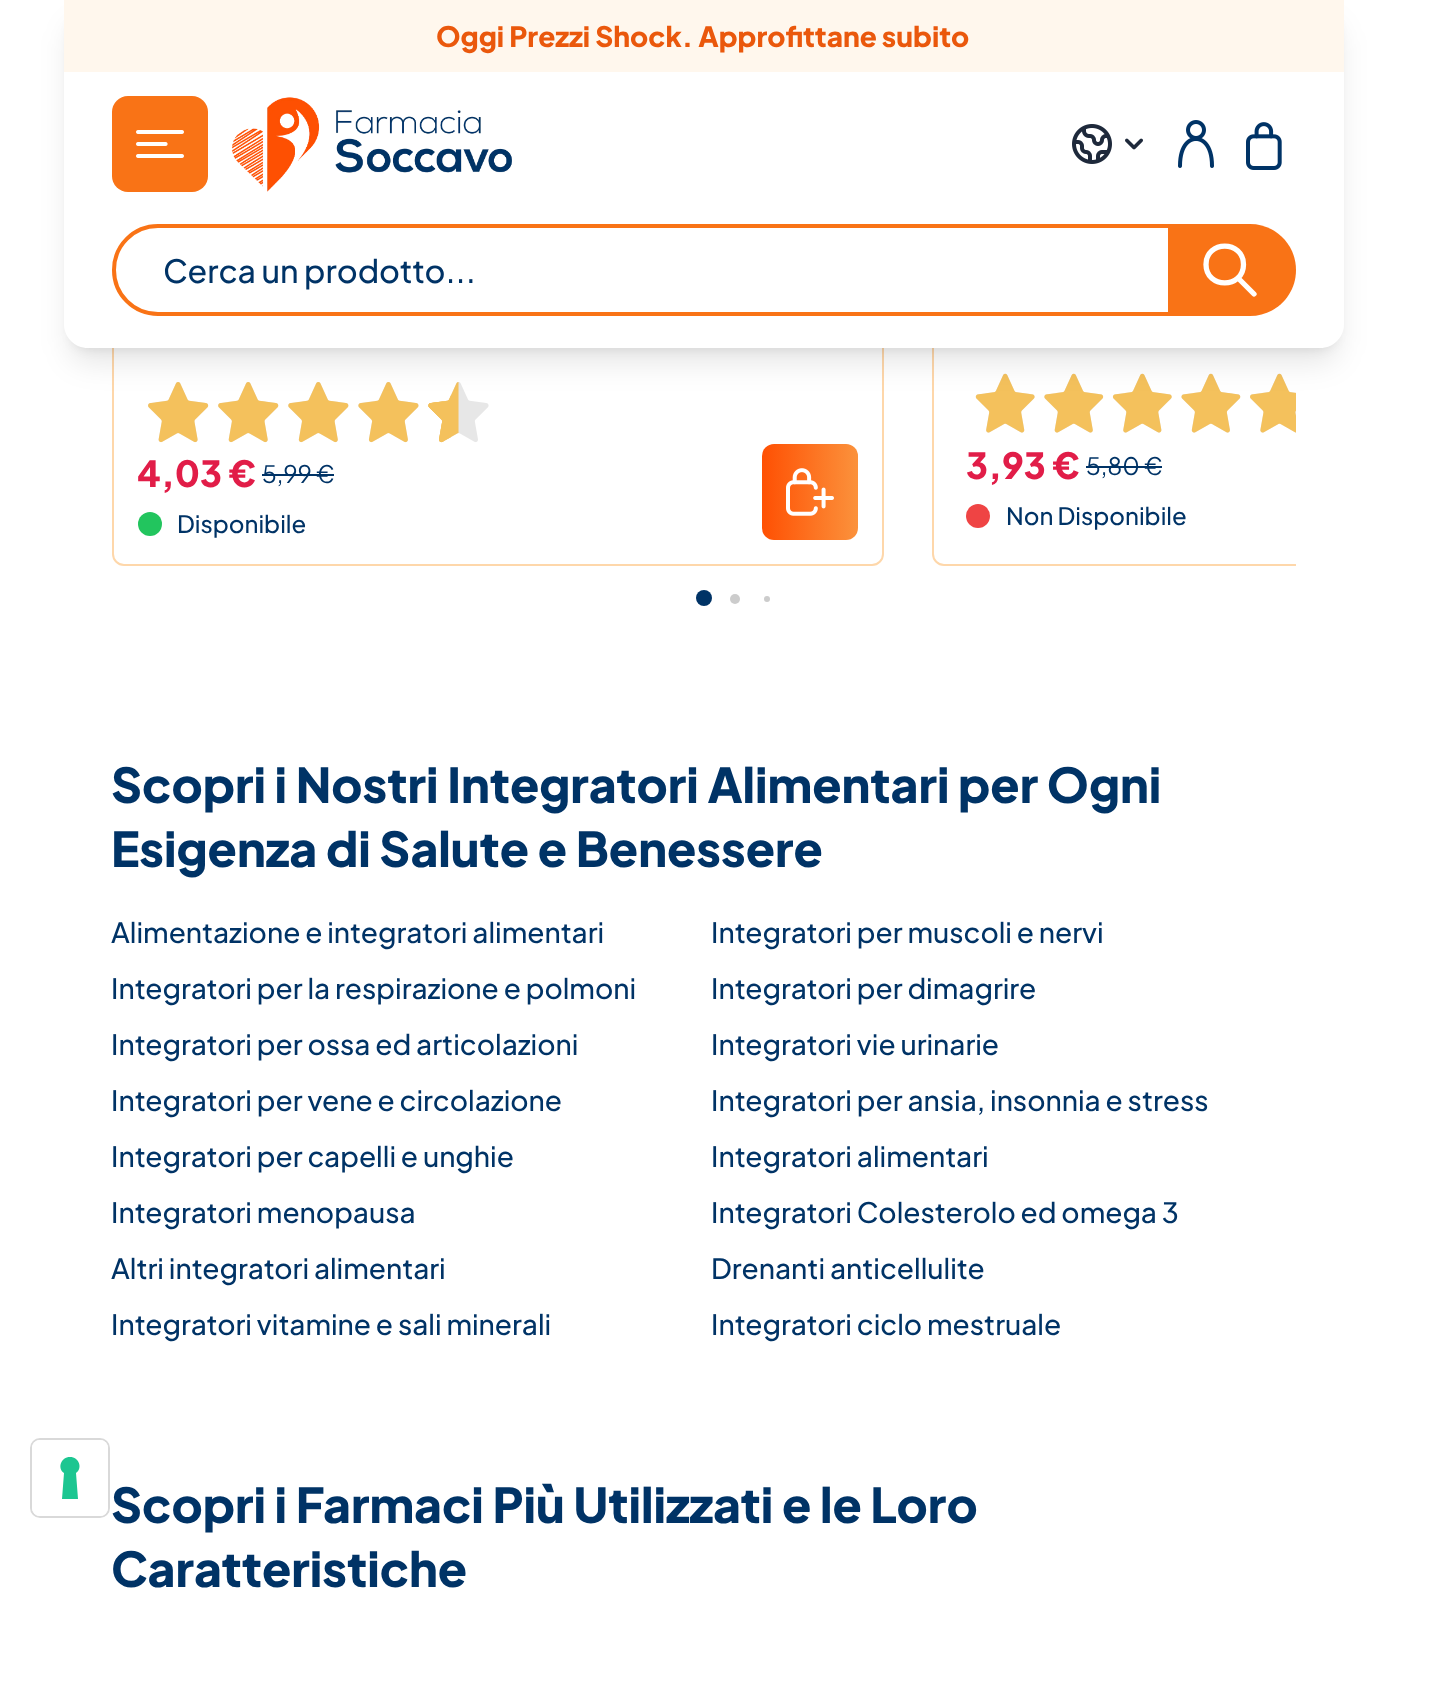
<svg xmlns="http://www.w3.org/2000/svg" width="1436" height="1688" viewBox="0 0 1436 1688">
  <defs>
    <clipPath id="clip1"><rect x="112" y="0" width="1184" height="622"/></clipPath>
    <linearGradient id="g1" gradientUnits="userSpaceOnUse" x1="762" y1="492" x2="858" y2="492"><stop offset="0" stop-color="rgb(255,80,3)"/><stop offset="1" stop-color="rgb(251,146,60)"/></linearGradient>
  </defs>
  <rect width="100%" height="100%" fill="rgb(255,255,255)"/>
  <rect x="31" y="1439" width="78" height="78" rx="9" fill="none" stroke="rgb(217,217,217)" stroke-width="2"/>
  <rect x="32" y="1440" width="76" height="76" rx="8" fill="rgb(255,255,255)"/>
  <path d="M70 1457C79 1457 83 1468 76 1473L78 1499H62L64 1473C57 1468 61 1457 70 1457Z" fill="rgb(28,198,145)" fill-rule="evenodd"/>
  <rect x="113" y="-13" width="770" height="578" rx="11" fill="none" stroke="rgb(254,215,170)" stroke-width="2"/>
  <g clip-path="url(#clip1)">
    <rect x="933" y="-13" width="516" height="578" rx="11" fill="none" stroke="rgb(254,215,170)" stroke-width="2"/>
  </g>
  <rect x="72" y="14" width="1264" height="334" rx="16" fill="rgba(0,0,0,0.1)" filter="blur(6px)"/>
  <image x="148" y="382" width="341" height="61" href="pic7.png"/>
  <image x="975" y="373" width="321" height="60" href="pic9.png"/>
  <rect x="70" y="24" width="1268" height="338" rx="18" fill="rgba(0,0,0,0.1)" filter="blur(15px)"/>
  <rect x="64" y="0" width="1280" height="72" fill="rgb(255,247,237)"/>
  <text x="436" y="47" font-family="Plus Jakarta Sans" font-size="28" font-weight="800" fill="rgb(234,88,12)">Oggi Prezzi Shock. Approfittane subito</text>
  <path d="M64 72H1344V324C1344 337.5 1333.5 348 1320 348H88C74.5 348 64 337.5 64 324Z" fill="rgb(255,255,255)"/>
  <rect x="112" y="96" width="96" height="96" rx="16" fill="rgb(249,115,22)"/>
  <image x="136" y="130" width="48" height="28" href="pic1.png"/>
  <image x="231" y="97" width="281" height="95" href="pic2.png"/>
  <image x="1072" y="124" width="40" height="40" href="pic3.png"/>
  <image x="1125" y="138" width="18" height="12" href="pic4.png"/>
  <image x="1178" y="120" width="36" height="48" href="pic5.png"/>
  <image x="1246" y="122" width="36" height="48" href="pic6.png"/>
  <path d="M158 226H1170V314H158C133.5 314 114 294.5 114 270C114 245.5 133.5 226 158 226Z" fill="none" stroke="rgb(249,115,22)" stroke-width="4"/>
  <text x="163" y="283" font-family="Plus Jakarta Sans" font-size="32" font-weight="500" fill="rgb(0,51,102)">Cerca un prodotto...</text>
  <path d="M1172 224H1250C1275.5 224 1296 244.5 1296 270C1296 295.5 1275.5 316 1250 316H1172Z" fill="rgb(249,115,22)"/>
  <path d="M1254 294L1238 278M1243.5 264.5C1243.5 289 1206 289 1206 264.5C1206 240 1243.5 240 1243.5 264.5Z" fill="none" stroke="rgb(255,255,255)" stroke-width="5.3" stroke-linecap="round" stroke-linejoin="round"/>
  <text x="137" y="487" font-family="Plus Jakarta Sans" font-size="36" font-weight="800" fill="rgb(225,29,72)">4,03 €</text>
  <text x="262" y="483" font-family="Plus Jakarta Sans" font-size="24" fill="rgb(0,51,102)">5,99 €</text>
  <rect x="262" y="474" width="72" height="2" fill="rgb(0,51,102)"/>
  <circle cx="150" cy="524" r="12" fill="rgb(34,197,94)"/>
  <text x="177" y="533" font-family="Plus Jakarta Sans" font-size="24" font-weight="500" fill="rgb(0,51,102)">Disponibile</text>
  <rect x="762" y="444" width="96" height="96" rx="12" fill="url(#g1)"/>
  <image x="786" y="468" width="48" height="48" href="pic8.png"/>
  <text x="966" y="479" font-family="Plus Jakarta Sans" font-size="36" font-weight="800" fill="rgb(225,29,72)">3,93 €</text>
  <text x="1086" y="475" font-family="Plus Jakarta Sans" font-size="24" fill="rgb(0,51,102)">5,80 €</text>
  <rect x="1086" y="466" width="76" height="2" fill="rgb(0,51,102)"/>
  <circle cx="978" cy="516" r="12" fill="rgb(239,68,68)"/>
  <text x="1006" y="525" font-family="Plus Jakarta Sans" font-size="24" font-weight="500" fill="rgb(0,51,102)">Non Disponibile</text>
  <circle cx="704" cy="598" r="8" fill="rgb(0,51,102)"/>
  <circle cx="735" cy="599" r="5" fill="rgb(204,204,204)"/>
  <circle cx="767" cy="599" r="3" fill="rgb(204,204,204)"/>
  <g font-family="Plus Jakarta Sans" font-size="48" font-weight="800" fill="rgb(0,51,102)">
    <text>
      <tspan x="111" y="803">Scopri i Nostri Integratori Alimentari per Ogni</tspan>
      <tspan x="111" y="867">Esigenza di Salute e Benessere</tspan>
    </text>
  </g>
  <g font-family="Plus Jakarta Sans" font-size="28" font-weight="500" fill="rgb(0,51,102)">
    <text x="111" y="943">Alimentazione e integratori alimentari</text>
    <text x="711" y="943">Integratori per muscoli e nervi</text>
    <text x="111" y="999">Integratori per la respirazione e polmoni</text>
    <text x="711" y="999">Integratori per dimagrire</text>
    <text x="111" y="1055">Integratori per ossa ed articolazioni</text>
    <text x="711" y="1055">Integratori vie urinarie</text>
    <text x="111" y="1111">Integratori per vene e circolazione</text>
    <text x="711" y="1111">Integratori per ansia, insonnia e stress</text>
    <text x="111" y="1167">Integratori per capelli e unghie</text>
    <text x="711" y="1167">Integratori alimentari</text>
    <text x="111" y="1223">Integratori menopausa</text>
    <text x="711" y="1223">Integratori Colesterolo ed omega 3</text>
    <text x="111" y="1279">Altri integratori alimentari</text>
    <text x="711" y="1279">Drenanti anticellulite</text>
    <text x="111" y="1335">Integratori vitamine e sali minerali</text>
    <text x="711" y="1335">Integratori ciclo mestruale</text>
  </g>
  <g font-family="Plus Jakarta Sans" font-size="48" font-weight="800" fill="rgb(0,51,102)">
    <text>
      <tspan x="111" y="1523">Scopri i Farmaci Più Utilizzati e le Loro</tspan>
      <tspan x="111" y="1587">Caratteristiche</tspan>
    </text>
  </g>
</svg>
